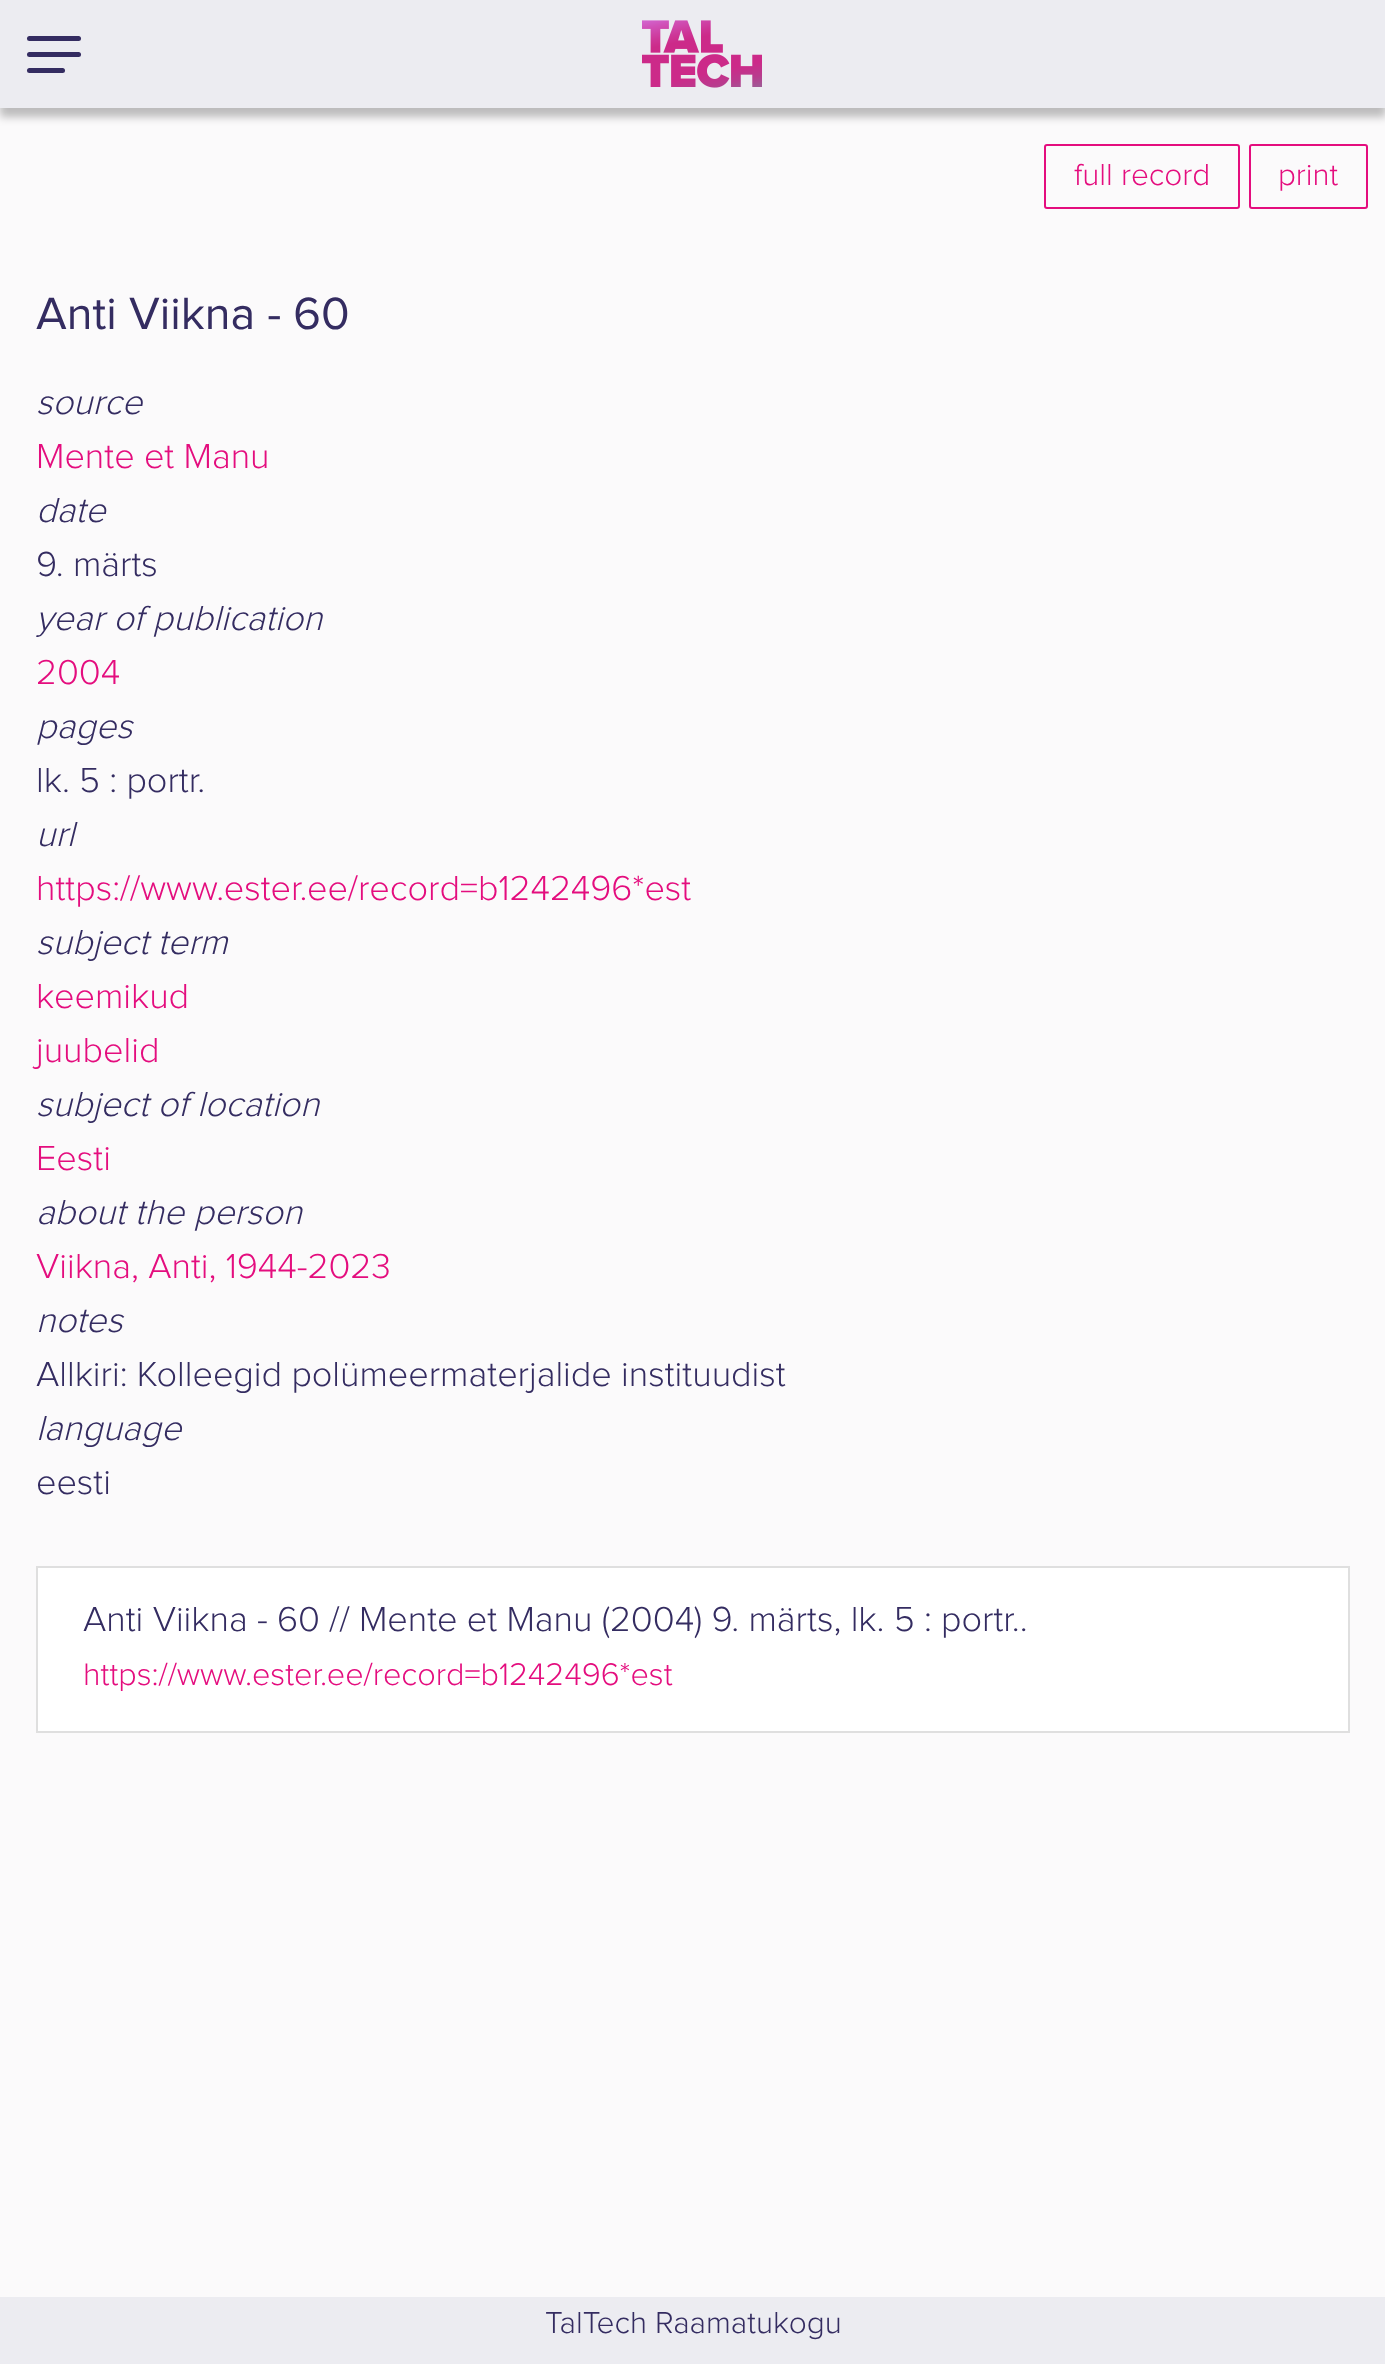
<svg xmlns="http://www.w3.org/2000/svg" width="1385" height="2364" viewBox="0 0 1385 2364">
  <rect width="100%" height="100%" fill="rgb(251,250,251)"/>
  <rect x="0" y="9" width="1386" height="108" fill="rgba(0,0,0,0.25)" filter="blur(4.5px)"/>
  <rect x="0" y="0" width="1385" height="108" fill="rgb(236,236,241)"/>
  <rect x="27" y="52" width="54" height="5" rx="2.5" fill="rgb(52,44,97)"/>
  <rect x="27" y="36" width="54" height="5" rx="2.5" fill="rgb(52,44,97)"/>
  <rect x="27" y="68" width="38" height="5" rx="2.5" fill="rgb(52,44,97)"/>
  <image x="642" y="20" width="120" height="68" href="pic1.png"/>
  <rect x="1045" y="145" width="194" height="63" rx="2" fill="none" stroke="rgb(228,13,126)" stroke-width="2"/>
  <text x="1074" y="185" font-family="Proxima Nova" font-size="31.5" font-weight="300" fill="rgb(228,13,126)">full record</text>
  <rect x="1250" y="145" width="117" height="63" rx="2" fill="none" stroke="rgb(228,13,126)" stroke-width="2"/>
  <text x="1278" y="185" font-family="Proxima Nova" font-size="31.5" font-weight="300" fill="rgb(228,13,126)">print</text>
  <text x="36" y="329" font-family="Proxima Nova" font-size="46.75" fill="rgb(52,44,97)">Anti Viikna - 60</text>
  <text x="36" y="414" font-family="Proxima Nova" font-size="36" font-weight="300" font-style="italic" fill="rgb(52,44,97)">source</text>
  <text x="36" y="468" font-family="Proxima Nova" font-size="36" font-weight="300" fill="rgb(228,13,126)">Mente et Manu</text>
  <text x="36" y="522" font-family="Proxima Nova" font-size="36" font-weight="300" font-style="italic" fill="rgb(52,44,97)">date</text>
  <text x="36" y="576" font-family="Proxima Nova" font-size="36" font-weight="300" fill="rgb(52,44,97)">9. märts</text>
  <text x="36" y="630" font-family="Proxima Nova" font-size="36" font-weight="300" font-style="italic" fill="rgb(52,44,97)">year of publication</text>
  <text x="36" y="684" font-family="Proxima Nova" font-size="36" font-weight="300" fill="rgb(228,13,126)">2004</text>
  <text x="36" y="738" font-family="Proxima Nova" font-size="36" font-weight="300" font-style="italic" fill="rgb(52,44,97)">pages</text>
  <text x="36" y="792" font-family="Proxima Nova" font-size="36" font-weight="300" fill="rgb(52,44,97)">lk. 5 : portr.</text>
  <text x="36" y="846" font-family="Proxima Nova" font-size="36" font-weight="300" font-style="italic" fill="rgb(52,44,97)">url</text>
  <text x="36" y="900" font-family="Proxima Nova" font-size="36" font-weight="300" fill="rgb(228,13,126)">https://www.ester.ee/record=b1242496*est</text>
  <text x="36" y="954" font-family="Proxima Nova" font-size="36" font-weight="300" font-style="italic" fill="rgb(52,44,97)">subject term</text>
  <g font-family="Proxima Nova" font-size="36" font-weight="300" fill="rgb(228,13,126)">
    <text>
      <tspan x="36" y="1008">keemikud</tspan>
      <tspan x="36" y="1062">juubelid</tspan>
    </text>
  </g>
  <text x="36" y="1116" font-family="Proxima Nova" font-size="36" font-weight="300" font-style="italic" fill="rgb(52,44,97)">subject of location</text>
  <text x="36" y="1170" font-family="Proxima Nova" font-size="36" font-weight="300" fill="rgb(228,13,126)">Eesti</text>
  <text x="36" y="1224" font-family="Proxima Nova" font-size="36" font-weight="300" font-style="italic" fill="rgb(52,44,97)">about the person</text>
  <text x="36" y="1278" font-family="Proxima Nova" font-size="36" font-weight="300" fill="rgb(228,13,126)">Viikna, Anti, 1944-2023</text>
  <text x="36" y="1332" font-family="Proxima Nova" font-size="36" font-weight="300" font-style="italic" fill="rgb(52,44,97)">notes</text>
  <text x="36" y="1386" font-family="Proxima Nova" font-size="36" font-weight="300" fill="rgb(52,44,97)">Allkiri: Kolleegid polümeermaterjalide instituudist</text>
  <text x="36" y="1440" font-family="Proxima Nova" font-size="36" font-weight="300" font-style="italic" fill="rgb(52,44,97)">language</text>
  <text x="36" y="1494" font-family="Proxima Nova" font-size="36" font-weight="300" fill="rgb(52,44,97)">eesti</text>
  <rect x="37" y="1567" width="1312" height="165" fill="rgb(255,255,255)" stroke="rgb(223,223,223)" stroke-width="2"/>
  <text x="83" y="1631" font-family="Proxima Nova" font-size="36" font-weight="300" fill="rgb(52,44,97)">Anti Viikna - 60 // Mente et Manu (2004) 9. märts, lk. 5 : portr..</text>
  <text x="83" y="1685" font-family="Proxima Nova" font-size="32.4" font-weight="300" fill="rgb(228,13,126)">https://www.ester.ee/record=b1242496*est</text>
  <rect x="0" y="2297" width="1385" height="67" fill="rgb(236,236,241)"/>
  <text x="545" y="2333" font-family="Proxima Nova" font-size="31.5" font-weight="300" fill="rgb(52,44,97)">TalTech Raamatukogu</text>
</svg>
